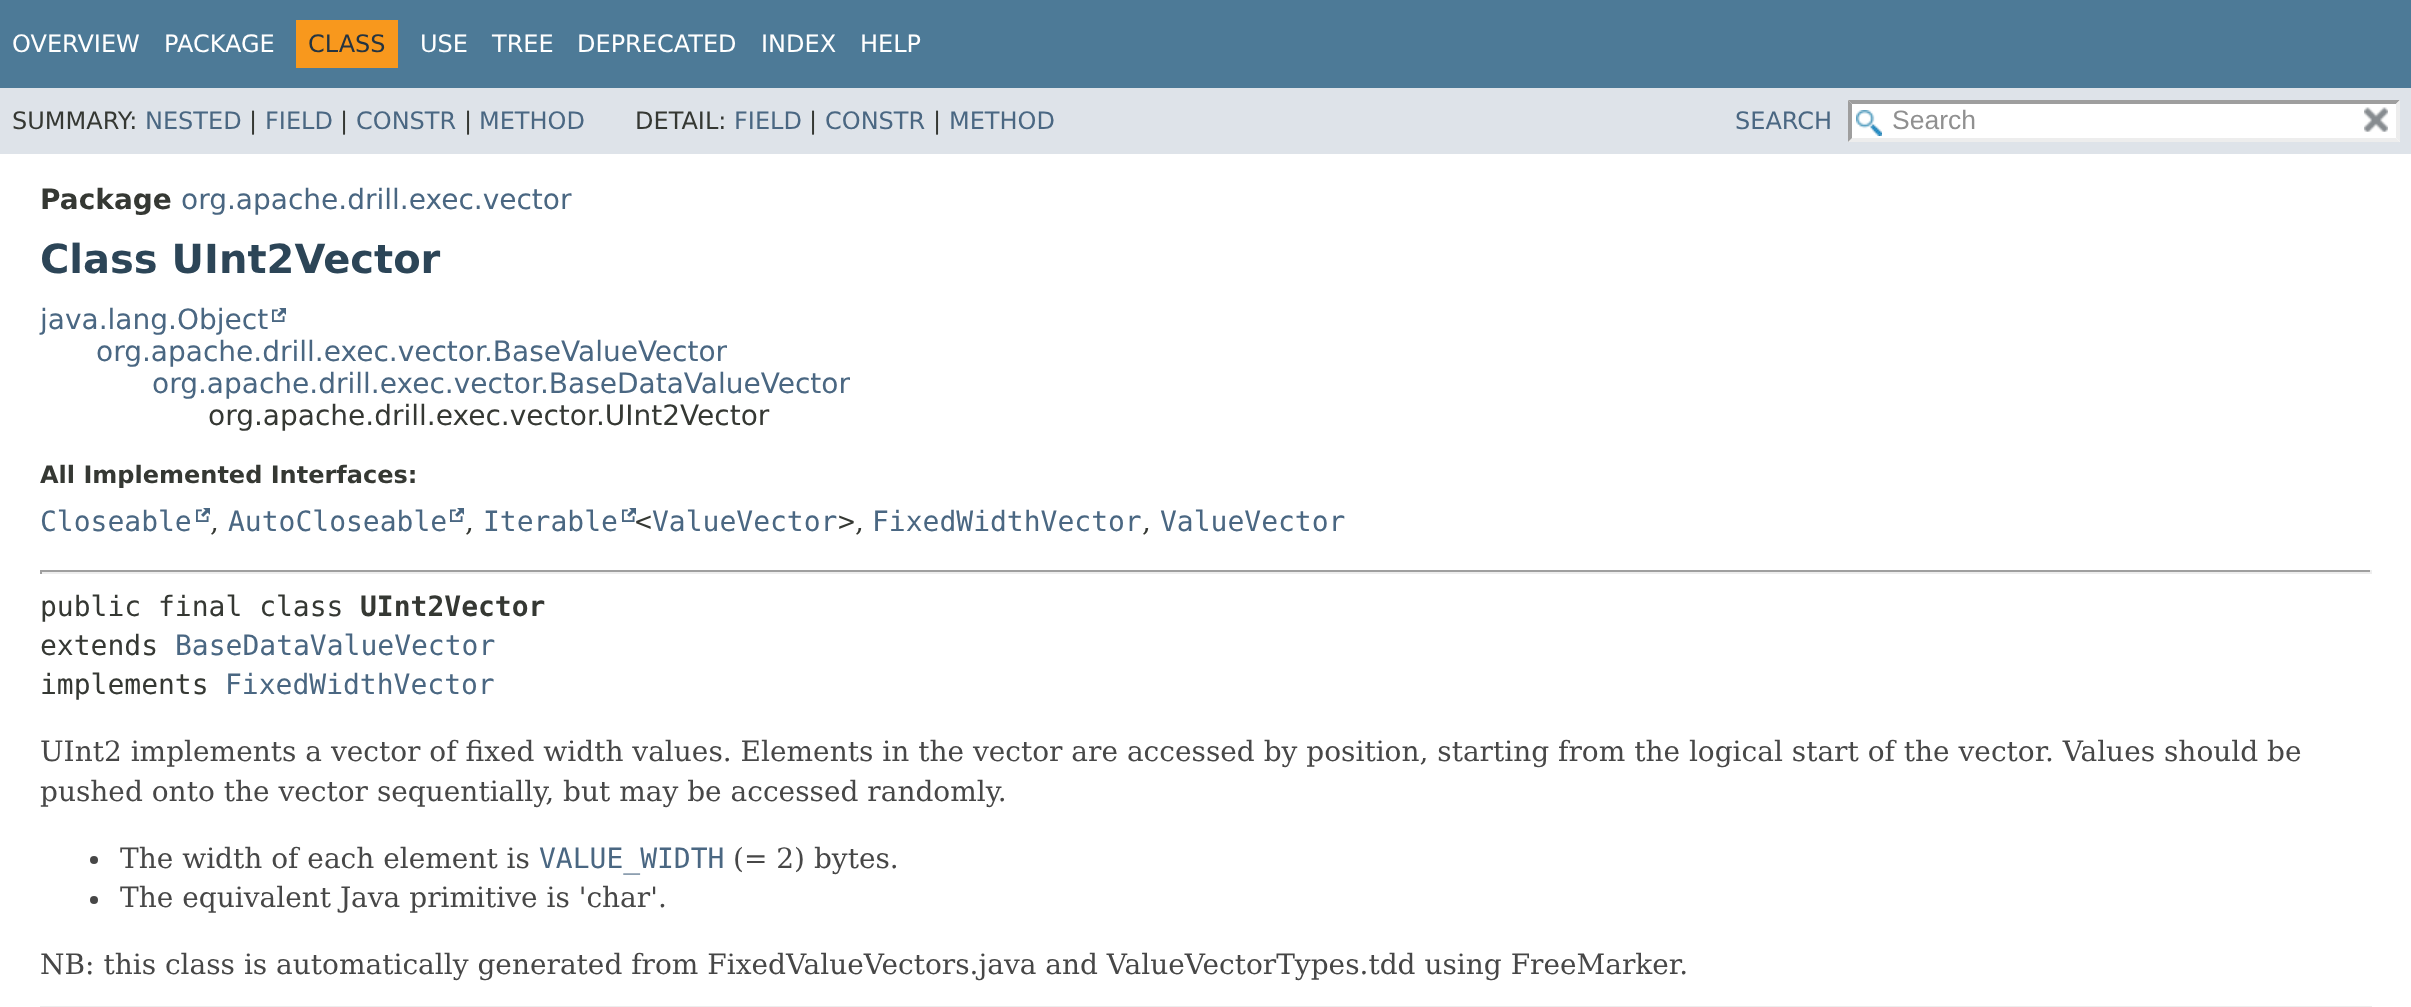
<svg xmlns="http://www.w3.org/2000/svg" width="2411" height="1007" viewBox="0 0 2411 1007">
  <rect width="100%" height="100%" fill="rgb(255,255,255)"/>
  <rect x="0" y="0" width="2411" height="88" fill="rgb(77,122,151)"/>
  <g font-family="DejaVu Sans" font-size="24" fill="rgb(255,255,255)">
    <text x="12" y="52">OVERVIEW</text>
    <text x="164" y="52">PACKAGE</text>
  </g>
  <rect x="296" y="20" width="102" height="48" fill="rgb(248,152,29)"/>
  <text x="308" y="52" font-family="DejaVu Sans" font-size="24" fill="rgb(37,52,65)">CLASS</text>
  <g font-family="DejaVu Sans" font-size="24" fill="rgb(255,255,255)">
    <text x="420" y="52">USE</text>
    <text x="492" y="52">TREE</text>
    <text x="577" y="52">DEPRECATED</text>
    <text x="761" y="52">INDEX</text>
    <text x="860" y="52">HELP</text>
  </g>
  <rect x="0" y="88" width="2411" height="66" fill="rgb(222,227,233)"/>
  <text x="12" y="129" font-family="DejaVu Sans" font-size="24" fill="rgb(53,56,51)">SUMMARY:</text>
  <text x="145" y="129" font-family="DejaVu Sans" font-size="24" fill="rgb(74,103,130)">NESTED</text>
  <text x="249" y="129" font-family="DejaVu Sans" font-size="24" fill="rgb(53,56,51)">|</text>
  <text x="265" y="129" font-family="DejaVu Sans" font-size="24" fill="rgb(74,103,130)">FIELD</text>
  <text x="340" y="129" font-family="DejaVu Sans" font-size="24" fill="rgb(53,56,51)">|</text>
  <text x="356" y="129" font-family="DejaVu Sans" font-size="24" fill="rgb(74,103,130)">CONSTR</text>
  <text x="464" y="129" font-family="DejaVu Sans" font-size="24" fill="rgb(53,56,51)">|</text>
  <text x="479" y="129" font-family="DejaVu Sans" font-size="24" fill="rgb(74,103,130)">METHOD</text>
  <text x="635" y="129" font-family="DejaVu Sans" font-size="24" fill="rgb(53,56,51)">DETAIL:</text>
  <text x="734" y="129" font-family="DejaVu Sans" font-size="24" fill="rgb(74,103,130)">FIELD</text>
  <text x="809" y="129" font-family="DejaVu Sans" font-size="24" fill="rgb(53,56,51)">|</text>
  <text x="825" y="129" font-family="DejaVu Sans" font-size="24" fill="rgb(74,103,130)">CONSTR</text>
  <text x="933" y="129" font-family="DejaVu Sans" font-size="24" fill="rgb(53,56,51)">|</text>
  <g font-family="DejaVu Sans" font-size="24" fill="rgb(74,103,130)">
    <text x="949" y="129">METHOD</text>
    <text x="1735" y="129">SEARCH</text>
  </g>
  <rect x="1848" y="100" width="552" height="42" fill="rgb(255,255,255)"/>
  <image x="1856" y="110" width="26" height="26" href="pic1.png"/>
  <path d="M1848 100H2400L2396 104H1852Z" fill="rgb(158,158,158)"/>
  <path d="M2400 100V142L2396 138V104Z" fill="rgb(237,237,237)"/>
  <path d="M2400 142H1848L1852 138H2396Z" fill="rgb(237,237,237)"/>
  <path d="M1848 142V100L1852 104V138Z" fill="rgb(158,158,158)"/>
  <text x="1892" y="129" font-family="Liberation Sans" font-size="26.5" fill="rgb(144,144,144)">Search</text>
  <image x="2364" y="107" width="24" height="25" href="pic2.png"/>
  <text x="40" y="209" font-family="DejaVu Sans" font-size="28" font-weight="bold" fill="rgb(53,56,51)">Package</text>
  <text x="181" y="209" font-family="DejaVu Sans" font-size="28" fill="rgb(74,103,130)">org.apache.drill.exec.vector</text>
  <text x="40" y="273" font-family="DejaVu Sans" font-size="40" font-weight="bold" fill="rgb(44,69,87)">Class UInt2Vector</text>
  <text x="40" y="329" font-family="DejaVu Sans" font-size="28" fill="rgb(74,103,130)">java.lang.Object</text>
  <image x="272" y="308" width="14" height="14" href="pic3.png"/>
  <g font-family="DejaVu Sans" font-size="28" fill="rgb(74,103,130)">
    <text x="96" y="361">org.apache.drill.exec.vector.BaseValueVector</text>
    <text x="152" y="393">org.apache.drill.exec.vector.BaseDataValueVector</text>
  </g>
  <text x="208" y="425" font-family="DejaVu Sans" font-size="28" fill="rgb(53,56,51)">org.apache.drill.exec.vector.UInt2Vector</text>
  <text x="40" y="483" font-family="DejaVu Sans" font-size="24" font-weight="bold" fill="rgb(53,56,51)">All Implemented Interfaces:</text>
  <text x="40" y="531" font-family="DejaVu Sans Mono" font-size="28" fill="rgb(74,103,130)">Closeable</text>
  <image x="196" y="508" width="14" height="14" href="pic3.png"/>
  <text x="210" y="531" font-family="DejaVu Serif" font-size="28" fill="rgb(53,56,51)">,</text>
  <text x="228" y="531" font-family="DejaVu Sans Mono" font-size="28" fill="rgb(74,103,130)">AutoCloseable</text>
  <image x="450" y="508" width="14" height="14" href="pic3.png"/>
  <text x="465" y="531" font-family="DejaVu Serif" font-size="28" fill="rgb(53,56,51)">,</text>
  <text x="483" y="531" font-family="DejaVu Sans Mono" font-size="28" fill="rgb(74,103,130)">Iterable</text>
  <image x="622" y="508" width="14" height="14" href="pic3.png"/>
  <text x="635" y="531" font-family="DejaVu Sans Mono" font-size="28" fill="rgb(53,56,51)">&lt;</text>
  <text x="652" y="531" font-family="DejaVu Sans Mono" font-size="28" fill="rgb(74,103,130)">ValueVector</text>
  <text x="838" y="531" font-family="DejaVu Sans Mono" font-size="28" fill="rgb(53,56,51)">&gt;</text>
  <text x="855" y="531" font-family="DejaVu Serif" font-size="28" fill="rgb(53,56,51)">,</text>
  <text x="872" y="531" font-family="DejaVu Sans Mono" font-size="28" fill="rgb(74,103,130)">FixedWidthVector</text>
  <text x="1142" y="531" font-family="DejaVu Serif" font-size="28" fill="rgb(53,56,51)">,</text>
  <text x="1160" y="531" font-family="DejaVu Sans Mono" font-size="28" fill="rgb(74,103,130)">ValueVector</text>
  <rect x="40" y="570" width="2332" height="2" fill="rgb(159,159,159)"/>
  <rect x="2370" y="570" width="2" height="4" fill="rgb(238,238,238)"/>
  <rect x="40" y="572" width="2332" height="2" fill="rgb(238,238,238)"/>
  <rect x="40" y="570" width="2" height="4" fill="rgb(159,159,159)"/>
  <text x="40" y="616" font-family="DejaVu Sans Mono" font-size="28" fill="rgb(53,56,51)">public final class</text>
  <text x="360" y="616" font-family="DejaVu Sans Mono" font-size="28" font-weight="bold" fill="rgb(53,56,51)">UInt2Vector</text>
  <text x="40" y="655" font-family="DejaVu Sans Mono" font-size="28" fill="rgb(53,56,51)">extends</text>
  <text x="175" y="655" font-family="DejaVu Sans Mono" font-size="28" fill="rgb(74,103,130)">BaseDataValueVector</text>
  <text x="40" y="694" font-family="DejaVu Sans Mono" font-size="28" fill="rgb(53,56,51)">implements</text>
  <text x="225" y="694" font-family="DejaVu Sans Mono" font-size="28" fill="rgb(74,103,130)">FixedWidthVector</text>
  <g font-family="DejaVu Serif" font-size="28" fill="rgb(71,71,71)">
    <text>
      <tspan x="40" y="761">UInt2 implements a vector of fixed width values. Elements in the vector are accessed by position, starting from the logical start of the vector. Values should be</tspan>
      <tspan x="40" y="801">pushed onto the vector sequentially, but may be accessed randomly.</tspan>
    </text>
  </g>
  <circle cx="94" cy="860" r="4" fill="rgb(71,71,71)"/>
  <text x="120" y="868" font-family="DejaVu Serif" font-size="28" fill="rgb(71,71,71)">The width of each element is</text>
  <text x="539" y="868" font-family="DejaVu Sans Mono" font-size="28" fill="rgb(74,103,130)">VALUE_WIDTH</text>
  <text x="733" y="868" font-family="DejaVu Serif" font-size="28" fill="rgb(71,71,71)">(= 2) bytes.</text>
  <circle cx="94" cy="900" r="4" fill="rgb(71,71,71)"/>
  <g font-family="DejaVu Serif" font-size="28" fill="rgb(71,71,71)">
    <text x="120" y="907">The equivalent Java primitive is 'char'.</text>
    <text x="40" y="974">NB: this class is automatically generated from FixedValueVectors.java and ValueVectorTypes.tdd using FreeMarker.</text>
  </g>
  <rect x="41" y="1007" width="2330" height="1" fill="none" stroke="rgb(237,237,237)" stroke-width="2"/>
</svg>
